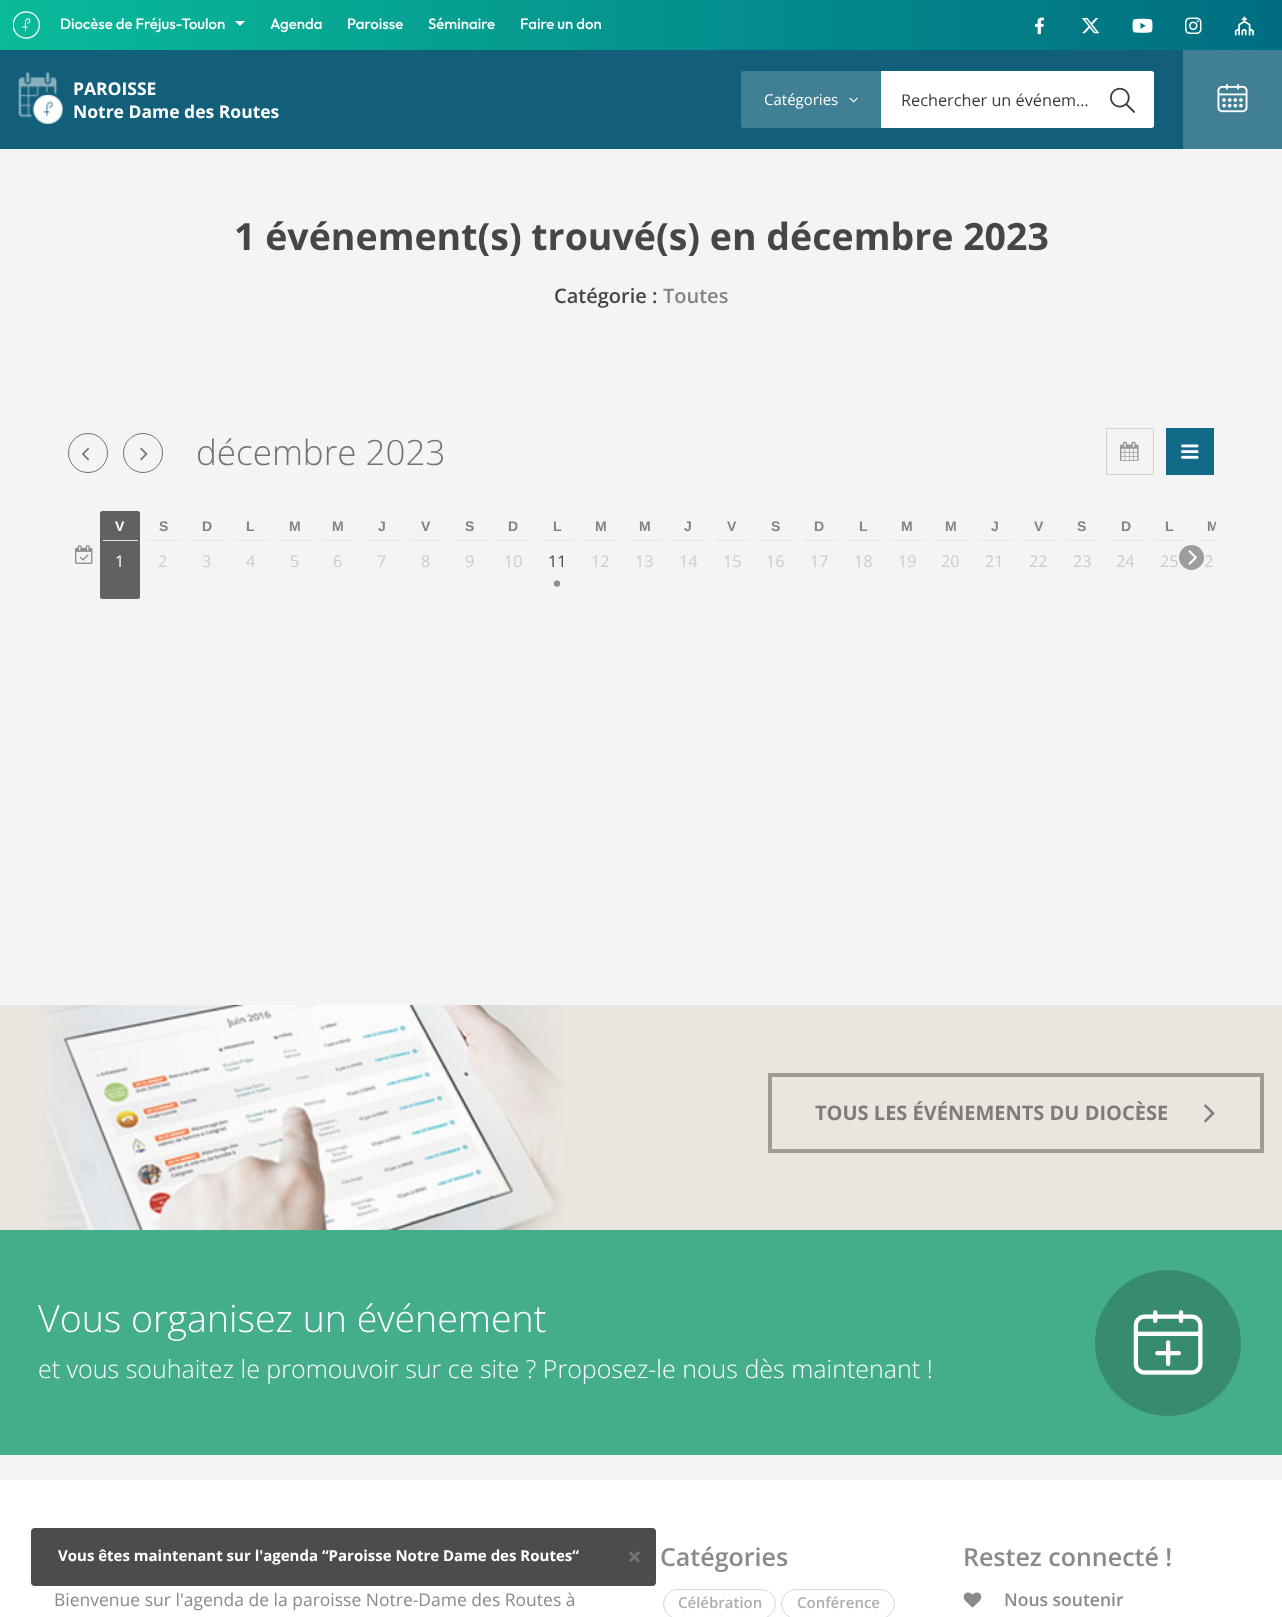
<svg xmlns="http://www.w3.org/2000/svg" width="1282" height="1617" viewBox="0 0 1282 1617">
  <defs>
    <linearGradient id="g1" gradientUnits="userSpaceOnUse" x1="0" y1="25" x2="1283" y2="25"><stop offset="0" stop-color="rgb(9,187,154)"/><stop offset="1" stop-color="rgb(0,109,129)"/></linearGradient>
    <clipPath id="clip1"><rect x="66" y="511" width="1150" height="92"/></clipPath>
  </defs>
  <rect width="100%" height="100%" fill="rgb(244,244,244)"/>
  <rect x="0" y="0" width="1282" height="50" fill="url(#g1)"/>
  <image x="13" y="11" width="27" height="28" href="pic1.png"/>
  <text x="60" y="29" font-family="Outfit" font-size="15" font-weight="100" fill="rgb(255,255,255)">Diocèse de Fréjus-Toulon</text>
  <path d="M235 21H245L240 26Z" fill="rgb(255,255,255)"/>
  <g font-family="Outfit" font-size="15" font-weight="100" fill="rgb(255,255,255)">
    <text x="270" y="29">Agenda</text>
    <text x="347" y="29">Paroisse</text>
    <text x="428" y="29">Séminaire</text>
    <text x="520" y="29">Faire un don</text>
  </g>
  <image x="1035" y="17" width="9" height="18" href="pic2.png"/>
  <image x="1082" y="18" width="18" height="16" href="pic3.png"/>
  <image x="1132" y="18" width="21" height="15" href="pic4.png"/>
  <image x="1185" y="17" width="17" height="17" href="pic5.png"/>
  <image x="1234" y="16" width="20" height="20" href="pic6.png"/>
  <rect x="0" y="50" width="1183" height="99" fill="rgb(17,95,122)"/>
  <image x="18" y="72" width="45" height="52" href="pic7.png"/>
  <g font-family="Open Sans" font-size="17.5" font-weight="bold" fill="rgb(255,255,255)">
    <text>
      <tspan x="73" y="95">PAROISSE</tspan>
      <tspan x="73" y="118">Notre Dame des Routes</tspan>
    </text>
  </g>
  <path d="M743.5 71H881V128H743.5C742 128 741 127 741 125.5V73.5C741 72 742 71 743.5 71Z" fill="rgb(65,127,149)"/>
  <text x="764" y="105" font-family="Open Sans" font-size="15" fill="rgb(255,255,255)">Catégories</text>
  <image x="849" y="97" width="9" height="6" href="pic8.png"/>
  <path d="M881 71H1151.5C1153 71 1154 72 1154 73.5V125.5C1154 127 1153 128 1151.5 128H881Z" fill="rgb(255,255,255)"/>
  <text x="901" y="106" font-family="Open Sans" font-size="16.25" fill="rgb(63,59,52)">Rechercher un événem…</text>
  <image x="1110" y="87" width="25" height="26" href="pic9.png"/>
  <rect x="1183" y="50" width="99" height="99" fill="rgb(65,127,149)"/>
  <image x="1217" y="84" width="31" height="29" href="pic10.png"/>
  <text x="234" y="250" font-family="Open Sans" font-size="37.5" font-weight="bold" fill="rgb(70,70,70)">1 événement(s) trouvé(s) en décembre 2023</text>
  <text x="554" y="303" font-family="Open Sans" font-size="20" font-weight="600" fill="rgb(70,70,70)">Catégorie :</text>
  <text x="663" y="303" font-family="Open Sans" font-size="20" font-weight="600" fill="rgb(135,132,128)">Toutes</text>
  <circle cx="88" cy="453" r="19.5" fill="none" stroke="rgb(115,115,115)"/>
  <image x="81" y="447" width="9" height="14" href="pic11.png"/>
  <circle cx="143" cy="453" r="19.5" fill="none" stroke="rgb(115,115,115)"/>
  <image x="140" y="447" width="8" height="14" href="pic12.png"/>
  <text x="196" y="465" font-family="Open Sans" font-size="35" font-weight="300" fill="rgb(115,115,115)">décembre 2023</text>
  <rect x="1106.5" y="428.5" width="47" height="46" fill="none" stroke="rgb(211,211,211)"/>
  <image x="1120" y="441" width="19" height="20" href="pic13.png"/>
  <rect x="1166" y="428" width="48" height="47" fill="rgb(19,105,136)"/>
  <image x="1181" y="444" width="18" height="15" href="pic14.png"/>
  <image x="75" y="545" width="18" height="19" href="pic15.png"/>
  <rect x="100" y="511" width="40" height="88" rx="2.5" fill="rgb(97,97,97)"/>
  <rect x="103" y="540" width="35" height="1" fill="rgb(230,230,230)"/>
  <text x="115" y="531" font-family="Liberation Sans" font-size="14" font-weight="bold" fill="rgb(255,255,255)">V</text>
  <text x="115" y="567" font-family="Open Sans" font-size="16.25" fill="rgb(255,255,255)">1</text>
  <rect x="146" y="540" width="35" height="1" fill="rgb(230,230,230)"/>
  <text x="159" y="531" font-family="Liberation Sans" font-size="14" font-weight="bold" fill="rgb(135,132,128)">S</text>
  <text x="158" y="567" font-family="Open Sans" font-size="16.25" fill="rgb(204,204,204)">2</text>
  <rect x="190" y="540" width="35" height="1" fill="rgb(230,230,230)"/>
  <text x="202" y="531" font-family="Liberation Sans" font-size="14" font-weight="bold" fill="rgb(135,132,128)">D</text>
  <text x="202" y="567" font-family="Open Sans" font-size="16.25" fill="rgb(204,204,204)">3</text>
  <rect x="234" y="540" width="35" height="1" fill="rgb(230,230,230)"/>
  <text x="246" y="531" font-family="Liberation Sans" font-size="14" font-weight="bold" fill="rgb(135,132,128)">L</text>
  <text x="246" y="567" font-family="Open Sans" font-size="16.25" fill="rgb(204,204,204)">4</text>
  <rect x="278" y="540" width="35" height="1" fill="rgb(230,230,230)"/>
  <text x="289" y="531" font-family="Liberation Sans" font-size="14" font-weight="bold" fill="rgb(135,132,128)">M</text>
  <text x="290" y="567" font-family="Open Sans" font-size="16.25" fill="rgb(204,204,204)">5</text>
  <rect x="321" y="540" width="35" height="1" fill="rgb(230,230,230)"/>
  <text x="332" y="531" font-family="Liberation Sans" font-size="14" font-weight="bold" fill="rgb(135,132,128)">M</text>
  <text x="333" y="567" font-family="Open Sans" font-size="16.25" fill="rgb(204,204,204)">6</text>
  <rect x="365" y="540" width="35" height="1" fill="rgb(230,230,230)"/>
  <text x="378" y="531" font-family="Liberation Sans" font-size="14" font-weight="bold" fill="rgb(135,132,128)">J</text>
  <text x="377" y="567" font-family="Open Sans" font-size="16.25" fill="rgb(204,204,204)">7</text>
  <rect x="409" y="540" width="35" height="1" fill="rgb(230,230,230)"/>
  <text x="421" y="531" font-family="Liberation Sans" font-size="14" font-weight="bold" fill="rgb(135,132,128)">V</text>
  <text x="421" y="567" font-family="Open Sans" font-size="16.25" fill="rgb(204,204,204)">8</text>
  <rect x="453" y="540" width="35" height="1" fill="rgb(230,230,230)"/>
  <text x="465" y="531" font-family="Liberation Sans" font-size="14" font-weight="bold" fill="rgb(135,132,128)">S</text>
  <text x="465" y="567" font-family="Open Sans" font-size="16.25" fill="rgb(204,204,204)">9</text>
  <rect x="496" y="540" width="35" height="1" fill="rgb(230,230,230)"/>
  <text x="508" y="531" font-family="Liberation Sans" font-size="14" font-weight="bold" fill="rgb(135,132,128)">D</text>
  <text x="504" y="567" font-family="Open Sans" font-size="16.25" fill="rgb(204,204,204)">10</text>
  <rect x="540" y="540" width="35" height="1" fill="rgb(230,230,230)"/>
  <text x="553" y="531" font-family="Liberation Sans" font-size="14" font-weight="bold" fill="rgb(135,132,128)">L</text>
  <text x="548" y="567" font-family="Open Sans" font-size="16.25" fill="rgb(70,70,70)">11</text>
  <image x="553" y="580" width="8" height="7" href="pic16.png"/>
  <rect x="584" y="540" width="35" height="1" fill="rgb(230,230,230)"/>
  <text x="595" y="531" font-family="Liberation Sans" font-size="14" font-weight="bold" fill="rgb(135,132,128)">M</text>
  <text x="591" y="567" font-family="Open Sans" font-size="16.25" fill="rgb(204,204,204)">12</text>
  <rect x="628" y="540" width="35" height="1" fill="rgb(230,230,230)"/>
  <text x="639" y="531" font-family="Liberation Sans" font-size="14" font-weight="bold" fill="rgb(135,132,128)">M</text>
  <text x="635" y="567" font-family="Open Sans" font-size="16.25" fill="rgb(204,204,204)">13</text>
  <rect x="671" y="540" width="35" height="1" fill="rgb(230,230,230)"/>
  <text x="684" y="531" font-family="Liberation Sans" font-size="14" font-weight="bold" fill="rgb(135,132,128)">J</text>
  <text x="679" y="567" font-family="Open Sans" font-size="16.25" fill="rgb(204,204,204)">14</text>
  <rect x="715" y="540" width="35" height="1" fill="rgb(230,230,230)"/>
  <text x="727" y="531" font-family="Liberation Sans" font-size="14" font-weight="bold" fill="rgb(135,132,128)">V</text>
  <text x="723" y="567" font-family="Open Sans" font-size="16.25" fill="rgb(204,204,204)">15</text>
  <rect x="759" y="540" width="35" height="1" fill="rgb(230,230,230)"/>
  <text x="771" y="531" font-family="Liberation Sans" font-size="14" font-weight="bold" fill="rgb(135,132,128)">S</text>
  <text x="766" y="567" font-family="Open Sans" font-size="16.25" fill="rgb(204,204,204)">16</text>
  <rect x="803" y="540" width="35" height="1" fill="rgb(230,230,230)"/>
  <text x="814" y="531" font-family="Liberation Sans" font-size="14" font-weight="bold" fill="rgb(135,132,128)">D</text>
  <text x="810" y="567" font-family="Open Sans" font-size="16.25" fill="rgb(204,204,204)">17</text>
  <rect x="846" y="540" width="35" height="1" fill="rgb(230,230,230)"/>
  <text x="859" y="531" font-family="Liberation Sans" font-size="14" font-weight="bold" fill="rgb(135,132,128)">L</text>
  <text x="854" y="567" font-family="Open Sans" font-size="16.25" fill="rgb(204,204,204)">18</text>
  <rect x="890" y="540" width="35" height="1" fill="rgb(230,230,230)"/>
  <text x="901" y="531" font-family="Liberation Sans" font-size="14" font-weight="bold" fill="rgb(135,132,128)">M</text>
  <text x="898" y="567" font-family="Open Sans" font-size="16.25" fill="rgb(204,204,204)">19</text>
  <rect x="934" y="540" width="35" height="1" fill="rgb(230,230,230)"/>
  <text x="945" y="531" font-family="Liberation Sans" font-size="14" font-weight="bold" fill="rgb(135,132,128)">M</text>
  <text x="941" y="567" font-family="Open Sans" font-size="16.25" fill="rgb(204,204,204)">20</text>
  <rect x="978" y="540" width="35" height="1" fill="rgb(230,230,230)"/>
  <text x="991" y="531" font-family="Liberation Sans" font-size="14" font-weight="bold" fill="rgb(135,132,128)">J</text>
  <text x="985" y="567" font-family="Open Sans" font-size="16.25" fill="rgb(204,204,204)">21</text>
  <rect x="1021" y="540" width="35" height="1" fill="rgb(230,230,230)"/>
  <text x="1034" y="531" font-family="Liberation Sans" font-size="14" font-weight="bold" fill="rgb(135,132,128)">V</text>
  <text x="1029" y="567" font-family="Open Sans" font-size="16.25" fill="rgb(204,204,204)">22</text>
  <rect x="1065" y="540" width="35" height="1" fill="rgb(230,230,230)"/>
  <text x="1077" y="531" font-family="Liberation Sans" font-size="14" font-weight="bold" fill="rgb(135,132,128)">S</text>
  <text x="1073" y="567" font-family="Open Sans" font-size="16.25" fill="rgb(204,204,204)">23</text>
  <rect x="1109" y="540" width="35" height="1" fill="rgb(230,230,230)"/>
  <text x="1121" y="531" font-family="Liberation Sans" font-size="14" font-weight="bold" fill="rgb(135,132,128)">D</text>
  <text x="1116" y="567" font-family="Open Sans" font-size="16.25" fill="rgb(204,204,204)">24</text>
  <rect x="1153" y="540" width="35" height="1" fill="rgb(230,230,230)"/>
  <text x="1165" y="531" font-family="Liberation Sans" font-size="14" font-weight="bold" fill="rgb(135,132,128)">L</text>
  <text x="1160" y="567" font-family="Open Sans" font-size="16.25" fill="rgb(204,204,204)">25</text>
  <rect x="1196" y="540" width="20" height="1" fill="rgb(230,230,230)"/>
  <g clip-path="url(#clip1)">
    <text x="1207" y="531" font-family="Liberation Sans" font-size="14" font-weight="bold" fill="rgb(135,132,128)">M</text>
  </g>
  <text x="1204" y="567" font-family="Open Sans" font-size="16.25" fill="rgb(204,204,204)">2</text>
  <circle cx="1191.5" cy="557.5" r="12.5" fill="rgb(157,157,157)"/>
  <image x="1188" y="550" width="10" height="15" href="pic17.png"/>
  <rect x="0" y="1005" width="1282" height="225" fill="rgb(234,230,223)"/>
  <image x="42" y="1005" width="522" height="225" href="pic18.png"/>
  <rect x="770" y="1075" width="492" height="76" fill="none" stroke="rgb(159,155,149)" stroke-width="4"/>
  <text x="815" y="1120" font-family="Open Sans" font-size="20" font-weight="bold" fill="rgb(127,123,118)">TOUS LES ÉVÉNEMENTS DU DIOCÈSE</text>
  <image x="1204" y="1104" width="11" height="19" href="pic19.png"/>
  <rect x="0" y="1230" width="1282" height="225" fill="rgb(68,174,140)"/>
  <text x="38" y="1332" font-family="Open Sans" font-size="37.5" font-weight="300" fill="rgb(255,255,255)">Vous organisez un événement</text>
  <text x="38" y="1378" font-family="Open Sans" font-size="25" font-weight="300" fill="rgb(255,255,255)">et vous souhaitez le promouvoir sur ce site ? Proposez-le nous dès maintenant !</text>
  <circle cx="1168" cy="1343" r="73" fill="rgb(54,139,112)"/>
  <image x="1133" y="1310" width="70" height="65" href="pic20.png"/>
  <rect x="0" y="1480" width="1282" height="137" fill="rgb(255,255,255)"/>
  <text x="54" y="1606" font-family="Open Sans" font-size="17.5" fill="rgb(140,138,136)">Bienvenue sur l'agenda de la paroisse Notre-Dame des Routes à</text>
  <text x="660" y="1566" font-family="Open Sans" font-size="25" font-weight="600" fill="rgb(140,138,136)">Catégories</text>
  <rect x="663.5" y="1589.5" width="112" height="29" rx="14.5" fill="none" stroke="rgb(215,215,215)"/>
  <text x="678" y="1608" font-family="Open Sans" font-size="15" font-weight="600" fill="rgb(174,174,174)">Célébration</text>
  <rect x="781.5" y="1589.5" width="113" height="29" rx="14.5" fill="none" stroke="rgb(215,215,215)"/>
  <text x="797" y="1608" font-family="Open Sans" font-size="15" font-weight="600" fill="rgb(174,174,174)">Conférence</text>
  <text x="963" y="1566" font-family="Open Sans" font-size="25" font-weight="600" fill="rgb(140,138,136)">Restez connecté !</text>
  <image x="963" y="1592" width="19" height="16" href="pic21.png"/>
  <text x="1004" y="1606" font-family="Open Sans" font-size="17.5" font-weight="600" fill="rgb(140,138,136)">Nous soutenir</text>
  <rect x="31" y="1528" width="625" height="58" rx="4" fill="rgba(0,0,0,0.7)"/>
  <text x="58" y="1561" font-family="Open Sans" font-size="15" font-weight="bold" fill="rgb(255,255,255)">Vous êtes maintenant sur l'agenda “Paroisse Notre Dame des Routes“</text>
  <text x="627" y="1566" font-family="Open Sans" font-size="26" font-weight="bold" fill="rgb(115,115,115)">×</text>
</svg>
